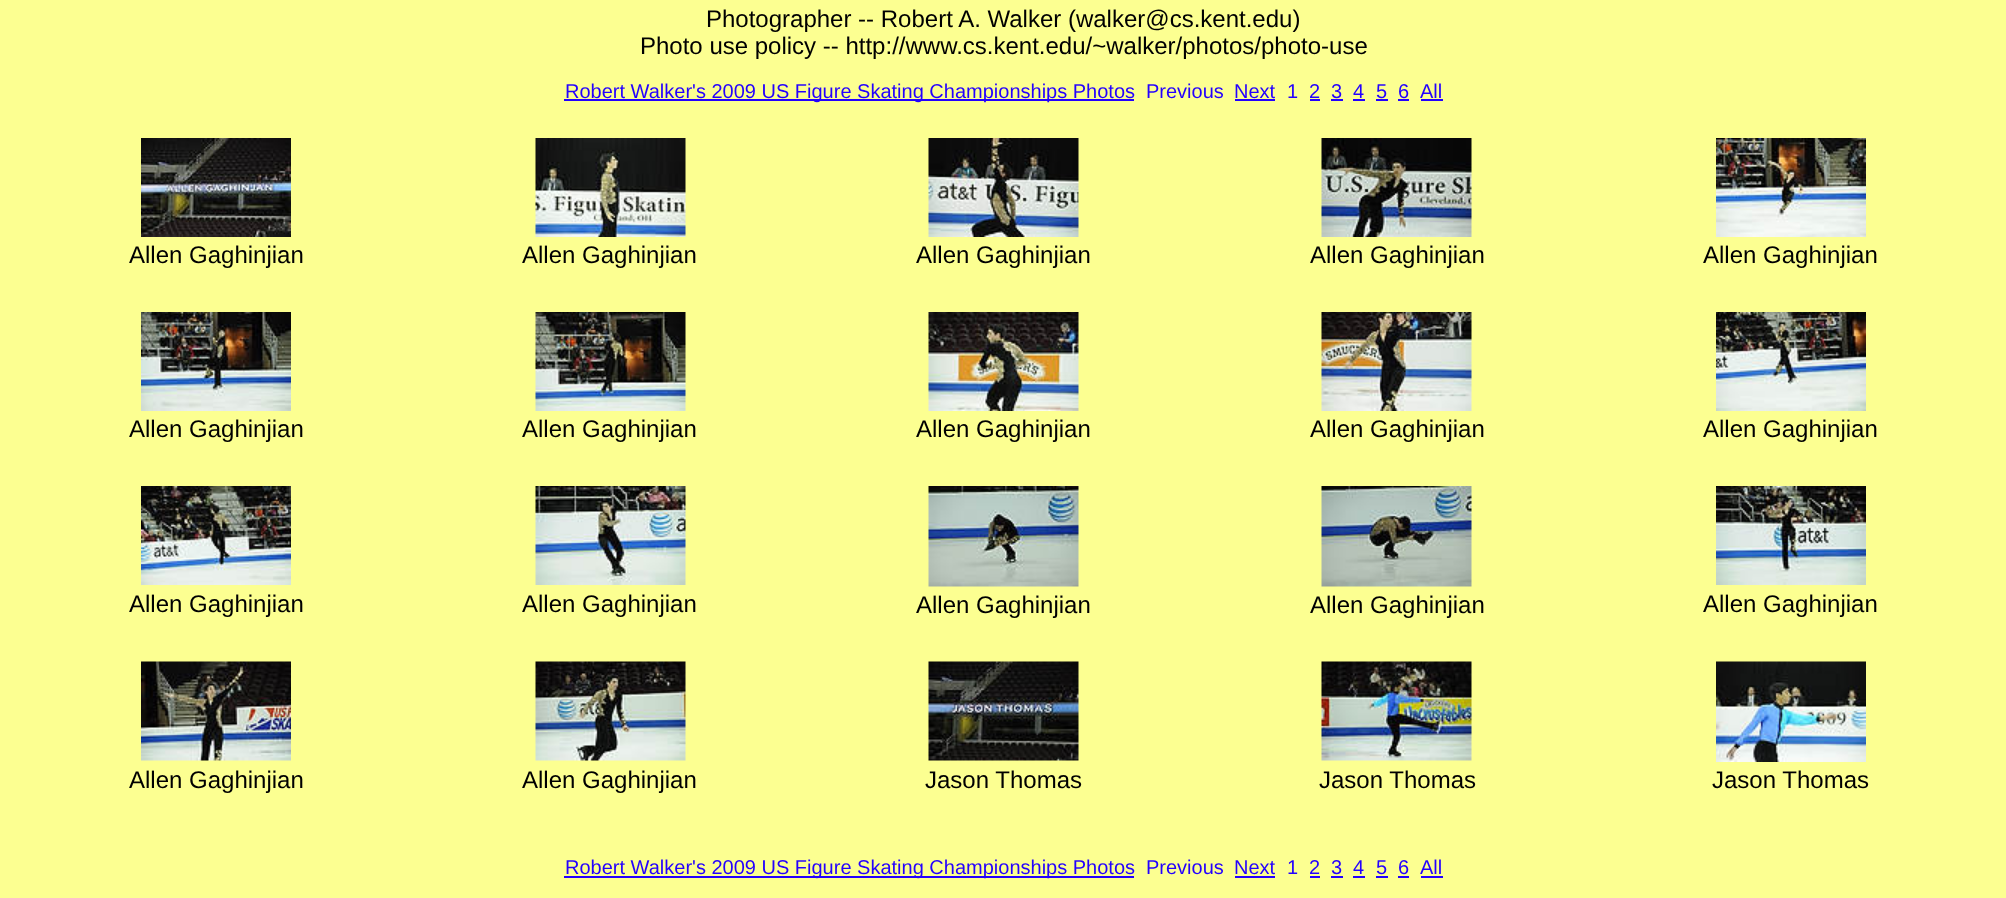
<svg xmlns="http://www.w3.org/2000/svg" width="2006" height="898" viewBox="0 0 2006 898">
  <rect width="100%" height="100%" fill="rgb(252,255,145)"/>
  <g font-family="Liberation Sans" font-size="24" fill="rgb(0,0,0)">
    <text x="706" y="27">Photographer -- Robert A. Walker (walker@cs.kent.edu)</text>
    <text x="640" y="54">Photo use policy -- http://www.cs.kent.edu/~walker/photos/photo-use</text>
  </g>
  <rect x="564" y="99" width="570" height="2" fill="rgb(35,0,255)"/>
  <g font-family="Liberation Sans" font-size="20" fill="rgb(35,0,255)">
    <text x="565" y="98">Robert Walker's 2009 US Figure Skating Championships Photos</text>
    <text x="1146" y="98">Previous</text>
    <text x="1234" y="98">Next</text>
  </g>
  <rect x="1235" y="99" width="40" height="2" fill="rgb(35,0,255)"/>
  <g font-family="Liberation Sans" font-size="20" fill="rgb(35,0,255)">
    <text x="1287" y="98">1</text>
    <text x="1309" y="98">2</text>
  </g>
  <rect x="1310" y="99" width="10" height="2" fill="rgb(35,0,255)"/>
  <text x="1331" y="98" font-family="Liberation Sans" font-size="20" fill="rgb(35,0,255)">3</text>
  <rect x="1331" y="99" width="12" height="2" fill="rgb(35,0,255)"/>
  <text x="1353" y="98" font-family="Liberation Sans" font-size="20" fill="rgb(35,0,255)">4</text>
  <rect x="1353" y="99" width="12" height="2" fill="rgb(35,0,255)"/>
  <text x="1376" y="98" font-family="Liberation Sans" font-size="20" fill="rgb(35,0,255)">5</text>
  <rect x="1376" y="99" width="12" height="2" fill="rgb(35,0,255)"/>
  <text x="1398" y="98" font-family="Liberation Sans" font-size="20" fill="rgb(35,0,255)">6</text>
  <rect x="1398" y="99" width="11" height="2" fill="rgb(35,0,255)"/>
  <text x="1420" y="98" font-family="Liberation Sans" font-size="20" fill="rgb(35,0,255)">All</text>
  <rect x="1421" y="99" width="22" height="2" fill="rgb(35,0,255)"/>
  <image x="141" y="138" width="150" height="99" href="pic1.png"/>
  <text x="129" y="263" font-family="Liberation Sans" font-size="24" fill="rgb(0,0,0)">Allen Gaghinjian</text>
  <image x="535" y="138" width="151" height="99" href="pic2.png"/>
  <text x="522" y="263" font-family="Liberation Sans" font-size="24" fill="rgb(0,0,0)">Allen Gaghinjian</text>
  <image x="928" y="138" width="151" height="99" href="pic3.png"/>
  <text x="916" y="263" font-family="Liberation Sans" font-size="24" fill="rgb(0,0,0)">Allen Gaghinjian</text>
  <image x="1321" y="138" width="151" height="99" href="pic4.png"/>
  <text x="1310" y="263" font-family="Liberation Sans" font-size="24" fill="rgb(0,0,0)">Allen Gaghinjian</text>
  <image x="1716" y="138" width="150" height="99" href="pic5.png"/>
  <text x="1703" y="263" font-family="Liberation Sans" font-size="24" fill="rgb(0,0,0)">Allen Gaghinjian</text>
  <image x="141" y="312" width="150" height="99" href="pic6.png"/>
  <text x="129" y="437" font-family="Liberation Sans" font-size="24" fill="rgb(0,0,0)">Allen Gaghinjian</text>
  <image x="535" y="312" width="151" height="99" href="pic7.png"/>
  <text x="522" y="437" font-family="Liberation Sans" font-size="24" fill="rgb(0,0,0)">Allen Gaghinjian</text>
  <image x="928" y="312" width="151" height="99" href="pic8.png"/>
  <text x="916" y="437" font-family="Liberation Sans" font-size="24" fill="rgb(0,0,0)">Allen Gaghinjian</text>
  <image x="1321" y="312" width="151" height="99" href="pic9.png"/>
  <text x="1310" y="437" font-family="Liberation Sans" font-size="24" fill="rgb(0,0,0)">Allen Gaghinjian</text>
  <image x="1716" y="312" width="150" height="99" href="pic10.png"/>
  <text x="1703" y="437" font-family="Liberation Sans" font-size="24" fill="rgb(0,0,0)">Allen Gaghinjian</text>
  <image x="141" y="486" width="150" height="99" href="pic11.png"/>
  <text x="129" y="612" font-family="Liberation Sans" font-size="24" fill="rgb(0,0,0)">Allen Gaghinjian</text>
  <image x="535" y="486" width="151" height="99" href="pic12.png"/>
  <text x="522" y="612" font-family="Liberation Sans" font-size="24" fill="rgb(0,0,0)">Allen Gaghinjian</text>
  <image x="928" y="486" width="151" height="101" href="pic13.png"/>
  <text x="916" y="613" font-family="Liberation Sans" font-size="24" fill="rgb(0,0,0)">Allen Gaghinjian</text>
  <image x="1321" y="486" width="151" height="101" href="pic14.png"/>
  <text x="1310" y="613" font-family="Liberation Sans" font-size="24" fill="rgb(0,0,0)">Allen Gaghinjian</text>
  <image x="1716" y="486" width="150" height="99" href="pic15.png"/>
  <text x="1703" y="612" font-family="Liberation Sans" font-size="24" fill="rgb(0,0,0)">Allen Gaghinjian</text>
  <image x="141" y="661" width="150" height="100" href="pic16.png"/>
  <text x="129" y="788" font-family="Liberation Sans" font-size="24" fill="rgb(0,0,0)">Allen Gaghinjian</text>
  <image x="535" y="661" width="151" height="100" href="pic17.png"/>
  <text x="522" y="788" font-family="Liberation Sans" font-size="24" fill="rgb(0,0,0)">Allen Gaghinjian</text>
  <image x="928" y="661" width="151" height="100" href="pic18.png"/>
  <text x="925" y="788" font-family="Liberation Sans" font-size="24" fill="rgb(0,0,0)">Jason Thomas</text>
  <image x="1321" y="661" width="151" height="100" href="pic19.png"/>
  <text x="1319" y="788" font-family="Liberation Sans" font-size="24" fill="rgb(0,0,0)">Jason Thomas</text>
  <image x="1716" y="661" width="150" height="101" href="pic20.png"/>
  <text x="1712" y="788" font-family="Liberation Sans" font-size="24" fill="rgb(0,0,0)">Jason Thomas</text>
  <rect x="564" y="876" width="570" height="2" fill="rgb(35,0,255)"/>
  <g font-family="Liberation Sans" font-size="20" fill="rgb(35,0,255)">
    <text x="565" y="874">Robert Walker's 2009 US Figure Skating Championships Photos</text>
    <text x="1146" y="874">Previous</text>
    <text x="1234" y="874">Next</text>
  </g>
  <rect x="1235" y="876" width="40" height="2" fill="rgb(35,0,255)"/>
  <g font-family="Liberation Sans" font-size="20" fill="rgb(35,0,255)">
    <text x="1287" y="874">1</text>
    <text x="1309" y="874">2</text>
  </g>
  <rect x="1310" y="876" width="10" height="2" fill="rgb(35,0,255)"/>
  <text x="1331" y="874" font-family="Liberation Sans" font-size="20" fill="rgb(35,0,255)">3</text>
  <rect x="1331" y="876" width="12" height="2" fill="rgb(35,0,255)"/>
  <text x="1353" y="874" font-family="Liberation Sans" font-size="20" fill="rgb(35,0,255)">4</text>
  <rect x="1353" y="876" width="12" height="2" fill="rgb(35,0,255)"/>
  <text x="1376" y="874" font-family="Liberation Sans" font-size="20" fill="rgb(35,0,255)">5</text>
  <rect x="1376" y="876" width="12" height="2" fill="rgb(35,0,255)"/>
  <text x="1398" y="874" font-family="Liberation Sans" font-size="20" fill="rgb(35,0,255)">6</text>
  <rect x="1398" y="876" width="11" height="2" fill="rgb(35,0,255)"/>
  <text x="1420" y="874" font-family="Liberation Sans" font-size="20" fill="rgb(35,0,255)">All</text>
  <rect x="1421" y="876" width="22" height="2" fill="rgb(35,0,255)"/>
</svg>
